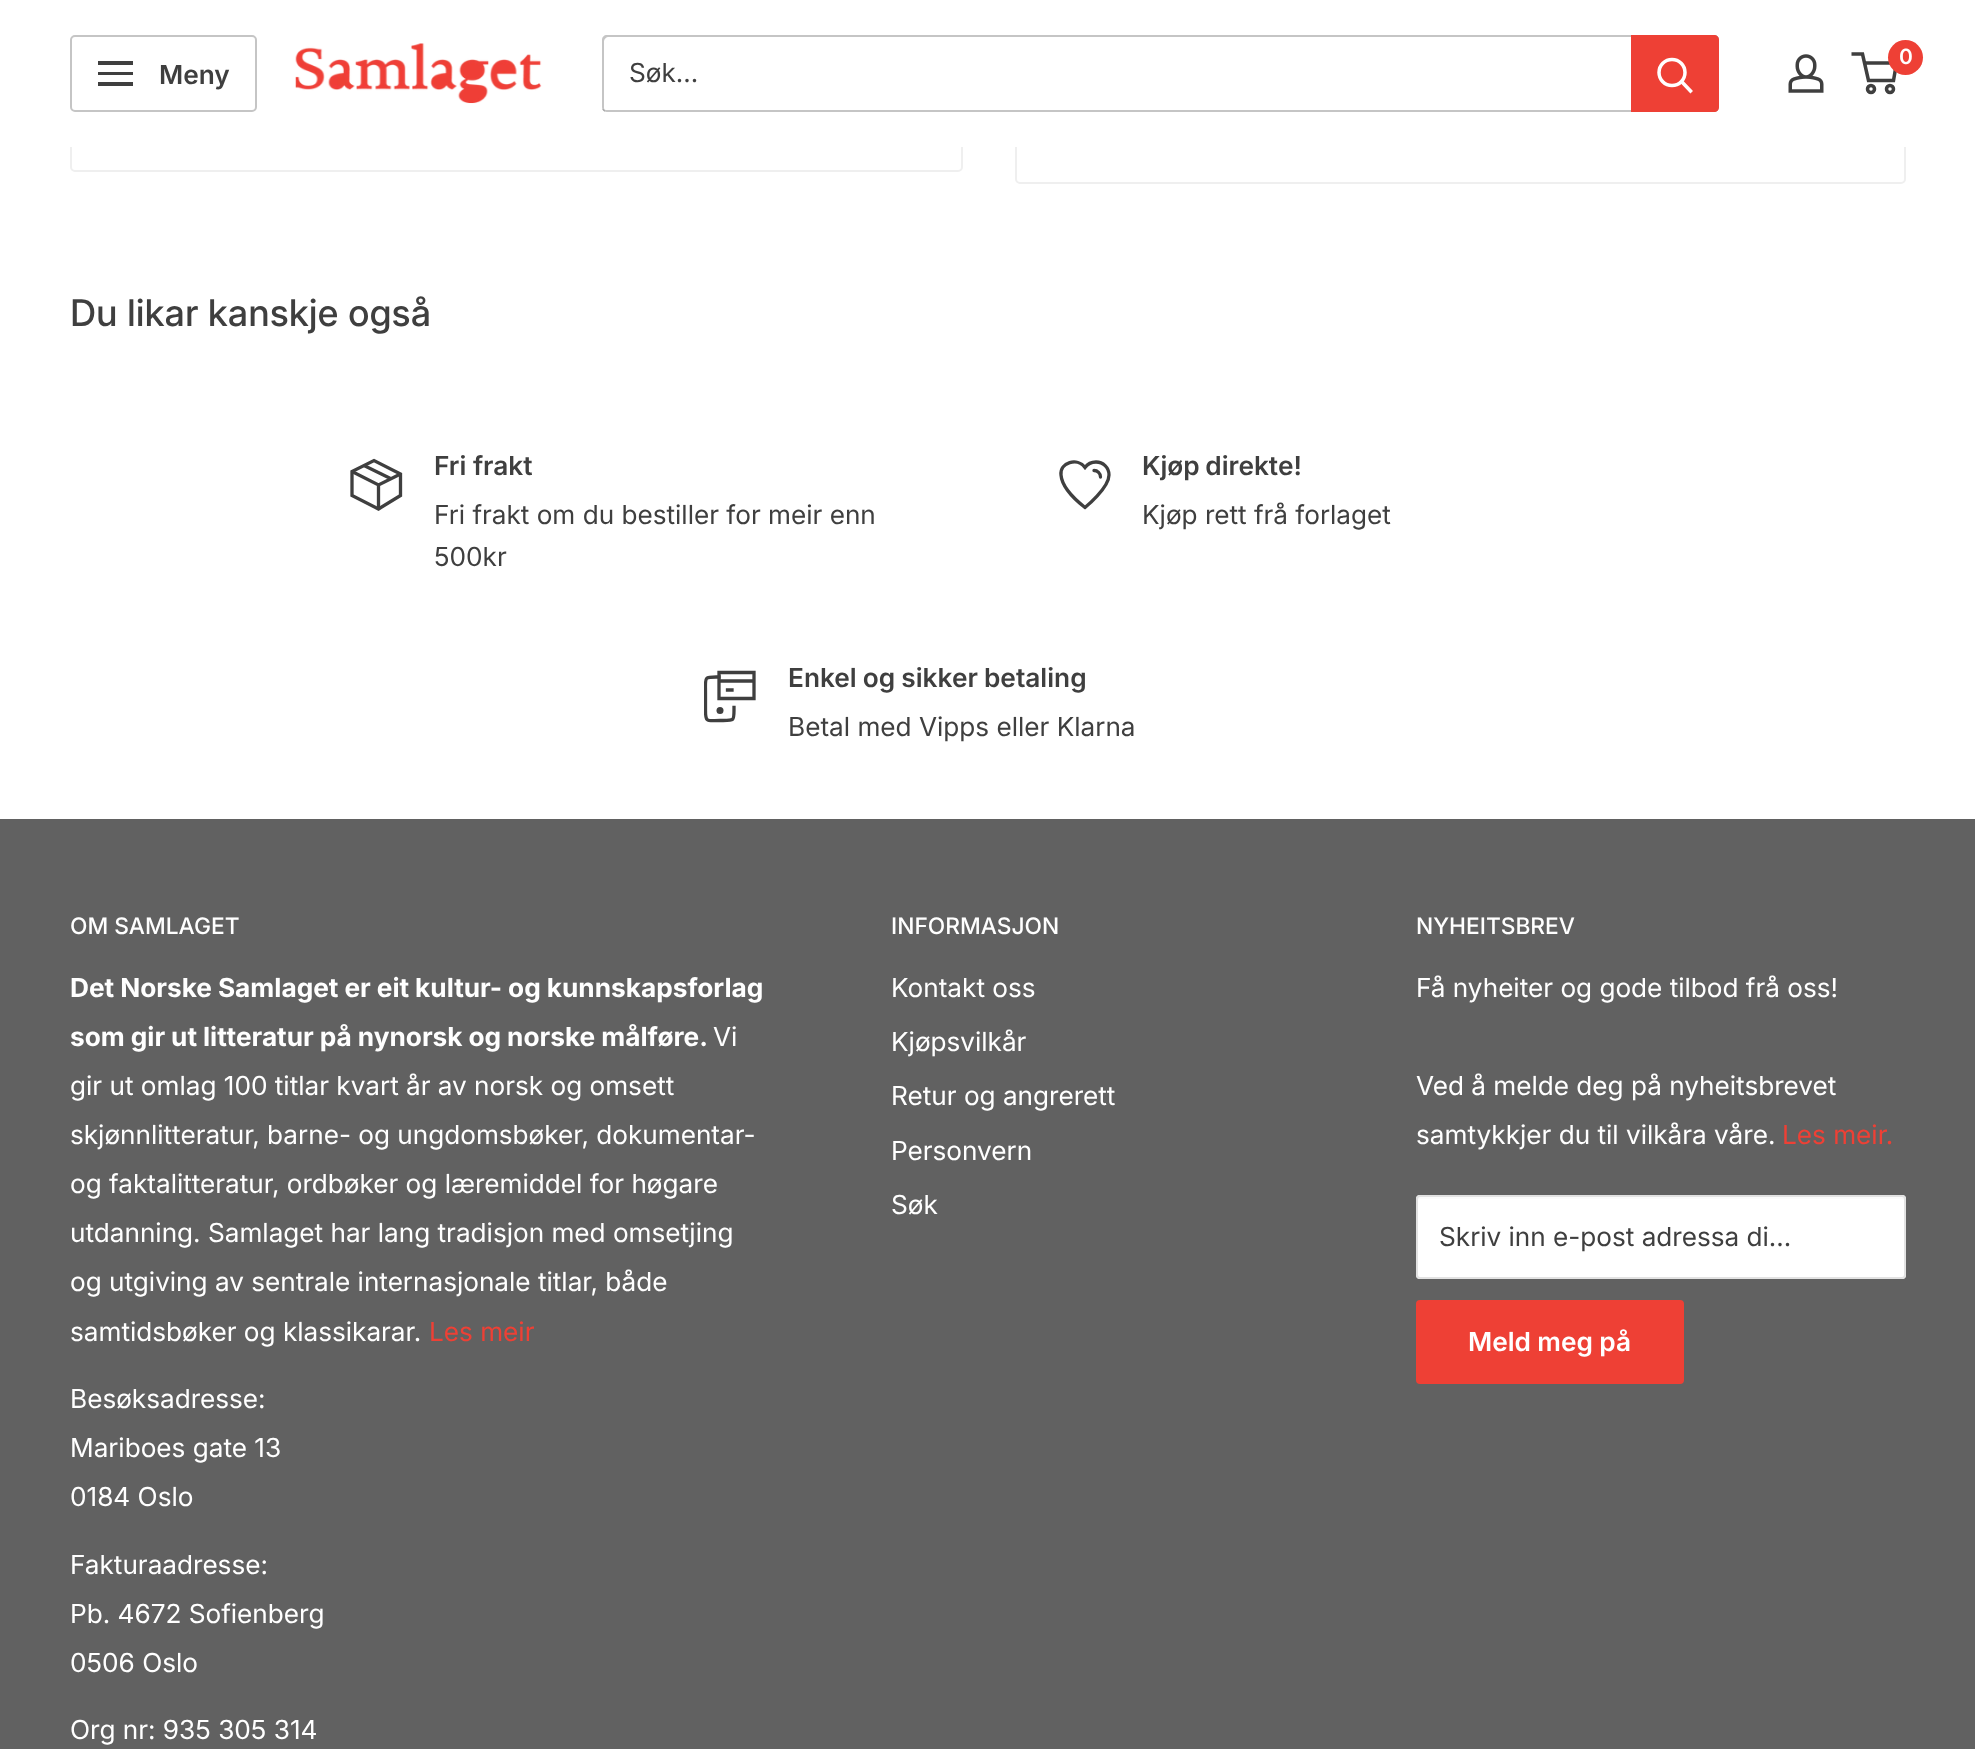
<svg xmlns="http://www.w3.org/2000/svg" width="1975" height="1749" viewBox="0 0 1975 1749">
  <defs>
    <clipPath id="clip1"><rect x="704" y="670" width="52" height="53"/></clipPath>
  </defs>
  <rect width="100%" height="100%" fill="rgb(255,255,255)"/>
  <rect x="71" y="-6" width="891" height="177" rx="4" fill="none" stroke="rgb(239,239,239)" stroke-width="2"/>
  <rect x="1016" y="-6" width="889" height="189" rx="4" fill="none" stroke="rgb(239,239,239)" stroke-width="2"/>
  <rect x="70" y="0" width="1836" height="147" fill="rgb(255,255,255)"/>
  <image x="295" y="43" width="247" height="61" href="pic1.png"/>
  <image x="1788" y="54" width="36" height="39" href="pic2.png"/>
  <circle cx="1871" cy="89" r="3.5" fill="none" stroke="rgb(63,63,63)" stroke-width="3.5"/>
  <circle cx="1890" cy="89" r="3.5" fill="none" stroke="rgb(63,63,63)" stroke-width="3.5"/>
  <path d="M1864.5 63H1896.5L1893.5 80.5H1868.5L1862.5 54H1851.5" fill="none" stroke="rgb(63,63,63)" stroke-width="3.5"/>
  <circle cx="1905.5" cy="57.5" r="17.5" fill="rgb(238,64,53)"/>
  <text x="1899" y="64" font-family="Inter" font-size="21" font-weight="600" fill="rgb(255,255,255)">0</text>
  <rect x="71" y="36" width="185" height="75" rx="4" fill="none" stroke="rgb(197,197,197)" stroke-width="2"/>
  <path d="M98 82H133V86H98ZM98 61H133V65H98ZM98 72H133V75H98Z" fill="rgb(63,63,63)" fill-rule="evenodd"/>
  <text x="159" y="84" font-family="Inter" font-size="26.25" font-weight="600" fill="rgb(63,63,63)">Meny</text>
  <path d="M602 109C603 111 605 112 607 112H1714C1717 112 1719 110 1719 107V40C1719 38 1718 36 1716 35L1717 38V105C1717 108 1714 110 1712 110H606Z" fill="rgb(197,197,197)"/>
  <path d="M609 37H1715C1717 37 1718 38 1719 39C1718 36 1716 35 1714 35H607C604 35 602 37 602 40V107C602 109 603 111 605 112L604 108V42C604 39 606 37 609 37Z" fill="rgba(63,63,63,0.3)"/>
  <text x="629" y="82" font-family="Inter" font-size="26.25" fill="rgb(63,63,63)">Søk...</text>
  <path d="M1631 35H1714C1717 35 1719 37 1719 40V107C1719 110 1717 112 1714 112H1631Z" fill="rgb(238,64,53)"/>
  <path d="M1690.5 91L1682 82" fill="none" stroke="rgb(255,255,255)" stroke-width="3.5" stroke-linecap="square"/>
  <circle cx="1672" cy="72.5" r="13" fill="none" stroke="rgb(255,255,255)" stroke-width="3.5"/>
  <text x="70" y="326" font-family="Inter" font-size="36.75" font-weight="500" fill="rgb(63,63,63)">Du likar kanskje også</text>
  <path d="M364 465.5L390.5 478.5M400.5 474L378.5 485L352 471.5M378.5 485V509" fill="none" stroke="rgb(63,63,63)" stroke-width="3.3"/>
  <path d="M400.5 474V495.5L378.5 509L352 495.5V471.5L374 460.5Z" fill="none" stroke="rgb(63,63,63)" stroke-width="3.3" stroke-linecap="square"/>
  <text x="434" y="475" font-family="Inter" font-size="26.25" font-weight="600" fill="rgb(63,63,63)">Fri frakt</text>
  <g font-family="Inter" font-size="26.25" fill="rgb(63,63,63)">
    <text>
      <tspan x="434" y="524">Fri frakt om du bestiller for meir enn</tspan>
      <tspan x="434" y="566">500kr</tspan>
    </text>
  </g>
  <path d="M1096 462C1091.5 462 1087.5 464 1085 467.5C1077.5 457 1059.5 462.5 1061 475C1062 487.5 1075.5 500 1085 507.5C1085 507.5 1109 488 1109 475C1109 467.5 1103 462 1096 462Z" fill="none" stroke="rgb(63,63,63)" stroke-width="3.3" stroke-linecap="square"/>
  <path d="M1094 470.5C1097.5 470.5 1100.5 473.5 1100.5 477" fill="none" stroke="rgb(63,63,63)" stroke-width="3.3" stroke-linecap="round"/>
  <text x="1142" y="475" word-spacing="-1" font-family="Inter" font-size="26.25" font-weight="600" fill="rgb(63,63,63)">Kjøp direkte!</text>
  <text x="1142" y="524" font-family="Inter" font-size="26.25" fill="rgb(63,63,63)">Kjøp rett frå forlaget</text>
  <circle cx="720" cy="710.5" r="3.5" fill="rgb(63,63,63)"/>
  <g clip-path="url(#clip1)">
    <path d="M734 707.5C734 721.5 735 720.5 720 720.5C707.5 720.5 705.5 723 705.5 710.5V693C705.5 676 703.5 677 719 677" fill="none" stroke="rgb(63,63,63)" stroke-width="3.3" stroke-linecap="square"/>
  </g>
  <path d="M754 698.5H719V672.5H754ZM719 681H754M732 690H727.5" fill="none" stroke="rgb(63,63,63)" stroke-width="3.3" stroke-linecap="square"/>
  <text x="788" y="687" word-spacing="-0.5" font-family="Inter" font-size="26.25" font-weight="600" fill="rgb(63,63,63)">Enkel og sikker betaling</text>
  <text x="788" y="736" font-family="Inter" font-size="26.25" fill="rgb(63,63,63)">Betal med Vipps eller Klarna</text>
  <rect x="0" y="819" width="1975" height="930" fill="rgb(97,97,97)"/>
  <text x="70" y="934" font-family="'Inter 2'" font-size="22.75" font-weight="500" fill="rgb(255,255,255)">OM SAMLAGET</text>
  <g font-family="Inter" font-size="26.25" font-weight="bold" fill="rgb(255,255,255)">
    <text>
      <tspan x="70" y="997" word-spacing="-0.25">Det Norske Samlaget er eit kultur- og kunnskapsforlag</tspan>
      <tspan x="70" y="1046" word-spacing="-0.25">som gir ut litteratur på nynorsk og norske målføre.</tspan>
    </text>
  </g>
  <g font-family="Inter" font-size="26.25" fill="rgb(255,255,255)">
    <text x="713" y="1046">Vi</text>
    <text>
      <tspan x="70" y="1095">gir ut omlag 100 titlar kvart år av norsk og omsett</tspan>
      <tspan x="70" y="1144">skjønnlitteratur, barne- og ungdomsbøker, dokumentar-</tspan>
      <tspan x="70" y="1193">og faktalitteratur, ordbøker og læremiddel for høgare</tspan>
      <tspan x="70" y="1242">utdanning. Samlaget har lang tradisjon med omsetjing</tspan>
      <tspan x="70" y="1291">og utgiving av sentrale internasjonale titlar, både</tspan>
      <tspan x="70" y="1341">samtidsbøker og klassikarar.</tspan>
    </text>
  </g>
  <text x="429" y="1341" font-family="Inter" font-size="26.25" fill="rgb(238,64,53)">Les meir</text>
  <g font-family="Inter" font-size="26.25" fill="rgb(255,255,255)">
    <text>
      <tspan x="70" y="1408">Besøksadresse:</tspan>
      <tspan x="70" y="1457">Mariboes gate 13</tspan>
      <tspan x="70" y="1506">0184 Oslo</tspan>
    </text>
    <text>
      <tspan x="70" y="1574">Fakturaadresse:</tspan>
      <tspan x="70" y="1623">Pb. 4672 Sofienberg</tspan>
      <tspan x="70" y="1672">0506 Oslo</tspan>
    </text>
    <text x="70" y="1739">Org nr: 935 305 314</text>
  </g>
  <text x="891" y="934" font-family="'Inter 2'" font-size="22.75" font-weight="500" fill="rgb(255,255,255)">INFORMASJON</text>
  <g font-family="Inter" font-size="26.25" fill="rgb(255,255,255)">
    <text x="891" y="997">Kontakt oss</text>
    <text x="891" y="1051">Kjøpsvilkår</text>
    <text x="891" y="1105">Retur og angrerett</text>
    <text x="891" y="1160">Personvern</text>
    <text x="891" y="1214">Søk</text>
  </g>
  <text x="1416" y="934" font-family="'Inter 2'" font-size="22.75" font-weight="500" fill="rgb(255,255,255)">NYHEITSBREV</text>
  <g font-family="Inter" font-size="26.25" fill="rgb(255,255,255)">
    <text x="1416" y="997">Få nyheiter og gode tilbod frå oss!</text>
    <text>
      <tspan x="1416" y="1095">Ved å melde deg på nyheitsbrevet</tspan>
      <tspan x="1416" y="1144">samtykkjer du til vilkåra våre.</tspan>
    </text>
  </g>
  <text x="1782" y="1144" font-family="Inter" font-size="26.25" fill="rgb(238,64,53)">Les meir.</text>
  <rect x="1416" y="1195" width="490" height="84" rx="4" fill="rgb(255,255,255)"/>
  <path d="M1419 1199H1902L1904 1200V1198L1902 1197H1420C1418 1197 1418 1199 1418 1200Z" fill="rgb(251,251,251)"/>
  <rect x="1417" y="1196" width="488" height="82" rx="3" fill="none" stroke="rgb(226,226,226)" stroke-width="2"/>
  <text x="1439" y="1246" font-family="Inter" font-size="26.25" fill="rgb(63,63,63)">Skriv inn e-post adressa di...</text>
  <rect x="1416" y="1300" width="268" height="84" rx="4" fill="rgb(238,64,53)"/>
  <text x="1468" y="1351" word-spacing="-0.25" font-family="Inter" font-size="26.25" font-weight="600" fill="rgb(255,255,255)">Meld meg på</text>
</svg>
